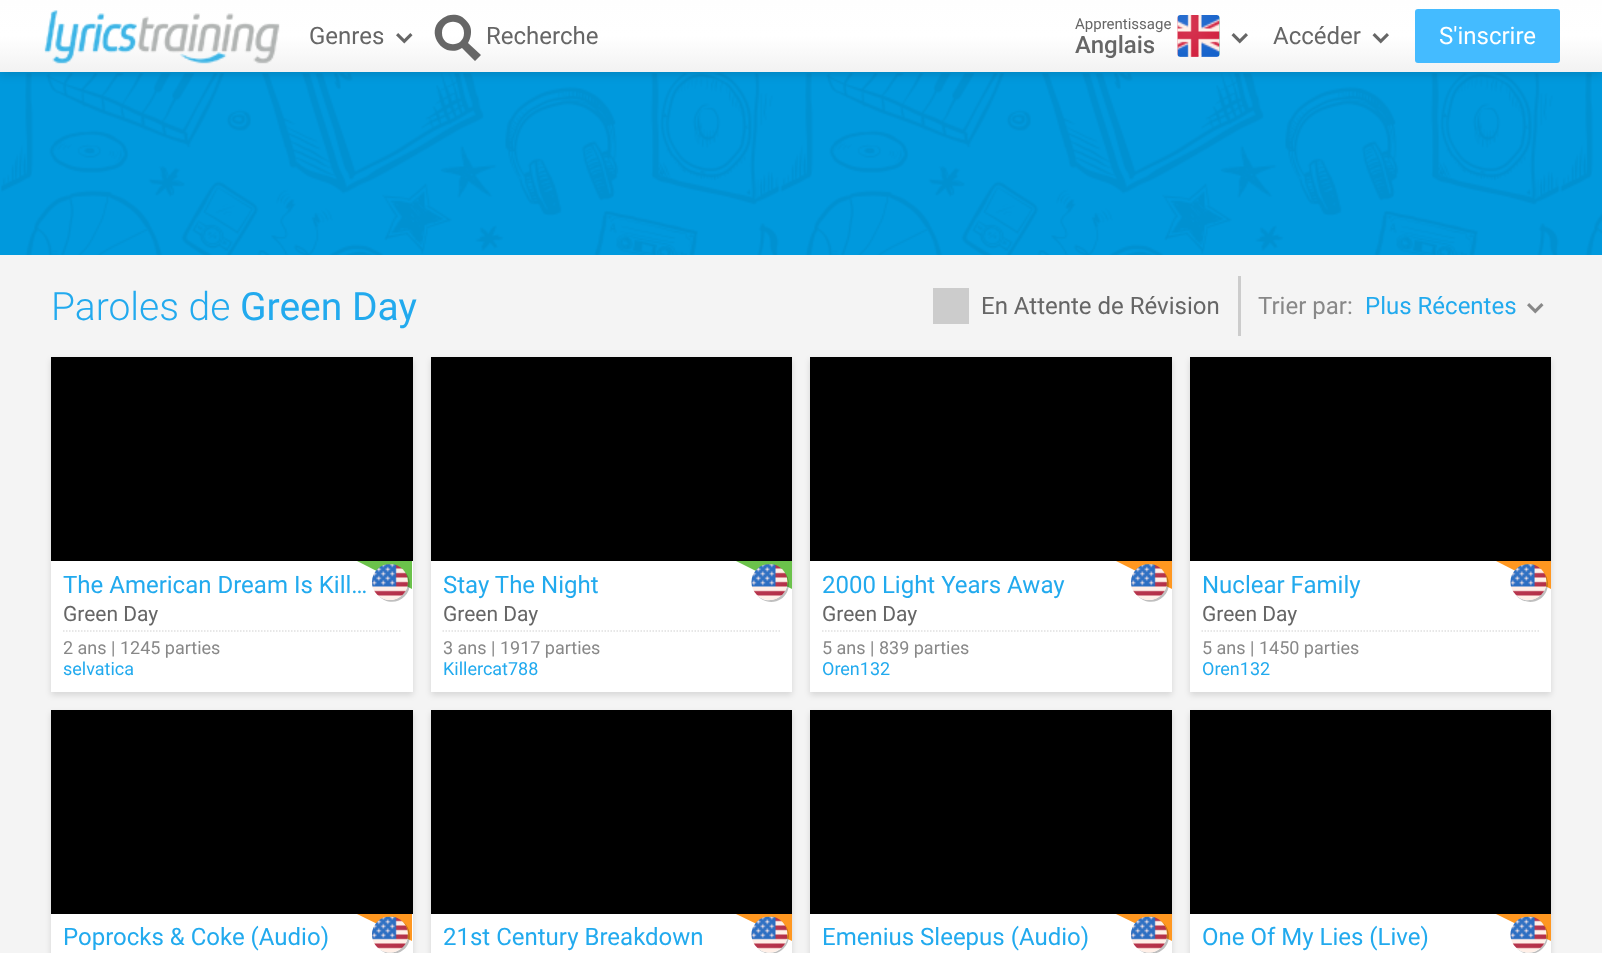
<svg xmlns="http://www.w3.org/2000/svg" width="1602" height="953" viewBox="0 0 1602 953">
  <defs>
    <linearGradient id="g1" gradientUnits="userSpaceOnUse" x1="801" y1="0" x2="801" y2="72"><stop offset="0" stop-color="rgb(254,254,254)"/><stop offset="0.5" stop-color="rgb(255,255,255)"/><stop offset="1" stop-color="rgb(242,242,242)"/></linearGradient>
  </defs>
  <rect width="100%" height="100%" fill="rgb(244,244,244)"/>
  <rect x="0" y="72" width="1602" height="183" fill="rgb(0,153,221)"/>
  <image x="1" y="73" width="1601" height="182" href="pic5.png"/>
  <rect x="0" y="0" width="1602" height="72" fill="rgba(0,0,0,0.2)" filter="blur(6px)"/>
  <rect x="0" y="0" width="1602" height="72" fill="url(#g1)"/>
  <image x="44" y="10" width="236" height="54" href="pic1.png"/>
  <text x="309" y="44" font-family="Roboto" font-size="24" fill="rgb(102,102,102)">Genres</text>
  <image x="396" y="33" width="17" height="11" href="pic2.png"/>
  <path d="M481 55L468 43C471 38 472 31 470 26C467 20 462 16 457 15C452 14 447 15 443 18C423 31 443 60 462 48L475 61ZM442 33C442 18 464 18 464 33C464 48 442 48 442 33Z" fill="rgb(102,102,102)"/>
  <text x="486" y="44" font-family="Roboto" font-size="24" fill="rgb(102,102,102)">Recherche</text>
  <text x="1075" y="29" font-family="Roboto" font-size="15" fill="rgb(102,102,102)">Apprentissage</text>
  <text x="1075" y="53" font-family="Roboto" font-size="24" font-weight="500" fill="rgb(102,102,102)">Anglais</text>
  <image x="1177" y="15" width="43" height="42" href="pic3.png"/>
  <image x="1231" y="33" width="17" height="11" href="pic4.png"/>
  <text x="1273" y="44" font-family="Roboto" font-size="24" fill="rgb(102,102,102)">Accéder</text>
  <image x="1372" y="33" width="17" height="11" href="pic4.png"/>
  <rect x="1415" y="9" width="145" height="54" rx="3" fill="rgb(68,187,255)"/>
  <text x="1439" y="44" font-family="Roboto" font-size="24" fill="rgb(255,255,255)">S'inscrire</text>
  <text x="51" y="320" font-family="Roboto" font-size="39" font-weight="300" fill="rgb(34,170,238)">Paroles de</text>
  <text x="240" y="320" font-family="Roboto" font-size="39" fill="rgb(34,170,238)">Green Day</text>
  <rect x="933" y="288" width="36" height="36" fill="rgb(204,204,204)"/>
  <text x="981" y="314" font-family="Roboto" font-size="24" fill="rgb(102,102,102)">En Attente de Révision</text>
  <rect x="1238" y="276" width="3" height="60" fill="rgb(204,204,204)"/>
  <text x="1258" y="314" font-family="Roboto" font-size="24" fill="rgb(136,136,136)">Trier par:</text>
  <text x="1365" y="314" font-family="Roboto" font-size="24" fill="rgb(34,170,238)">Plus Récentes</text>
  <image x="1527" y="303" width="17" height="11" href="pic6.png"/>
  <rect x="51" y="360" width="362" height="335" fill="rgba(0,0,0,0.12)" filter="blur(3px)"/>
  <rect x="51" y="561" width="362" height="131" fill="rgb(255,255,255)"/>
  <rect x="51" y="357" width="362" height="204" fill="rgb(0,0,0)"/>
  <text x="63" y="593" font-family="Roboto" font-size="24" fill="rgb(34,170,238)">The American Dream Is Kill…</text>
  <path d="M412 589L357 561H412Z" fill="rgb(107,194,75)"/>
  <path d="M378.5 595.5C385 603.5 397.5 604 404.5 596.5C412 589.5 411.5 577 403.5 570.5C418 587 395 610 378.5 595.5Z" fill="rgba(0,0,0,0.25)"/>
  <image x="372" y="564" width="36" height="36" href="pic7.png"/>
  <path d="M63 631H400.5" fill="none" stroke="rgb(223,223,223)" stroke-width="1.5" stroke-dasharray="1.5 1.5"/>
  <text x="63" y="621" font-family="Roboto" font-size="21" fill="rgb(102,102,102)">Green Day</text>
  <text x="63" y="654" font-family="Roboto" font-size="18" fill="rgb(136,136,136)">2 ans | 1245 parties</text>
  <text x="63" y="675" font-family="Roboto" font-size="18" fill="rgb(34,170,238)">selvatica</text>
  <rect x="431" y="360" width="361" height="335" fill="rgba(0,0,0,0.12)" filter="blur(3px)"/>
  <rect x="431" y="561" width="361" height="131" fill="rgb(255,255,255)"/>
  <rect x="431" y="357" width="361" height="204" fill="rgb(0,0,0)"/>
  <text x="443" y="593" font-family="Roboto" font-size="24" fill="rgb(34,170,238)">Stay The Night</text>
  <path d="M792 589L736 561H792Z" fill="rgb(107,194,75)"/>
  <path d="M756 594C761.5 602 773 604.5 781 599C790 593 791.5 580 784.5 572C796.5 591 770.5 610.5 756 594Z" fill="rgba(0,0,0,0.25)"/>
  <image x="751" y="564" width="37" height="36" href="pic8.png"/>
  <path d="M442.5 631H780" fill="none" stroke="rgb(223,223,223)" stroke-width="1.5" stroke-dasharray="1.5 1.5"/>
  <text x="443" y="621" font-family="Roboto" font-size="21" fill="rgb(102,102,102)">Green Day</text>
  <text x="443" y="654" font-family="Roboto" font-size="18" fill="rgb(136,136,136)">3 ans | 1917 parties</text>
  <text x="443" y="675" font-family="Roboto" font-size="18" fill="rgb(34,170,238)">Killercat788</text>
  <rect x="810" y="360" width="362" height="335" fill="rgba(0,0,0,0.12)" filter="blur(3px)"/>
  <rect x="810" y="561" width="362" height="131" fill="rgb(255,255,255)"/>
  <rect x="810" y="357" width="362" height="204" fill="rgb(0,0,0)"/>
  <text x="822" y="593" font-family="Roboto" font-size="24" fill="rgb(34,170,238)">2000 Light Years Away</text>
  <path d="M1172 589L1116 561H1172Z" fill="rgb(255,151,32)"/>
  <path d="M1137.5 595.5C1144 603.5 1156.5 604 1163.5 596.5C1171 589.5 1170.5 577 1162.5 570.5C1177 587 1154 610 1137.5 595.5Z" fill="rgba(0,0,0,0.25)"/>
  <image x="1131" y="564" width="36" height="36" href="pic9.png"/>
  <path d="M822 631H1159.5" fill="none" stroke="rgb(223,223,223)" stroke-width="1.5" stroke-dasharray="1.5 1.5"/>
  <text x="822" y="621" font-family="Roboto" font-size="21" fill="rgb(102,102,102)">Green Day</text>
  <text x="822" y="654" font-family="Roboto" font-size="18" fill="rgb(136,136,136)">5 ans | 839 parties</text>
  <text x="822" y="675" font-family="Roboto" font-size="18" fill="rgb(34,170,238)">Oren132</text>
  <rect x="1190" y="360" width="361" height="335" fill="rgba(0,0,0,0.12)" filter="blur(3px)"/>
  <rect x="1190" y="561" width="361" height="131" fill="rgb(255,255,255)"/>
  <rect x="1190" y="357" width="361" height="204" fill="rgb(0,0,0)"/>
  <text x="1202" y="593" font-family="Roboto" font-size="24" fill="rgb(34,170,238)">Nuclear Family</text>
  <path d="M1551 589L1496 561H1551Z" fill="rgb(255,151,32)"/>
  <path d="M1515 594C1520.5 602 1532 604.5 1540 599C1549 593 1550.5 580 1543.5 572C1555.5 591 1529.5 610.5 1515 594Z" fill="rgba(0,0,0,0.25)"/>
  <image x="1510" y="564" width="37" height="36" href="pic10.png"/>
  <path d="M1201.5 631H1539" fill="none" stroke="rgb(223,223,223)" stroke-width="1.5" stroke-dasharray="1.5 1.5"/>
  <text x="1202" y="621" font-family="Roboto" font-size="21" fill="rgb(102,102,102)">Green Day</text>
  <text x="1202" y="654" font-family="Roboto" font-size="18" fill="rgb(136,136,136)">5 ans | 1450 parties</text>
  <text x="1202" y="675" font-family="Roboto" font-size="18" fill="rgb(34,170,238)">Oren132</text>
  <rect x="51" y="713" width="362" height="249" fill="rgba(0,0,0,0.12)" filter="blur(3px)"/>
  <rect x="51" y="914" width="362" height="39" fill="rgb(255,255,255)"/>
  <rect x="51" y="710" width="362" height="204" fill="rgb(0,0,0)"/>
  <text x="63" y="945" font-family="Roboto" font-size="24" fill="rgb(34,170,238)">Poprocks &amp; Coke (Audio)</text>
  <path d="M412 941L357 914H412Z" fill="rgb(255,151,32)"/>
  <path d="M380 949.5C388 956.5 401 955 407 946C412.5 938 410 926.5 402 921C418.5 935.5 399 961.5 380 949.5Z" fill="rgba(0,0,0,0.25)"/>
  <image x="372" y="916" width="36" height="37" href="pic11.png"/>
  <rect x="431" y="713" width="361" height="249" fill="rgba(0,0,0,0.12)" filter="blur(3px)"/>
  <rect x="431" y="914" width="361" height="39" fill="rgb(255,255,255)"/>
  <rect x="431" y="710" width="361" height="204" fill="rgb(0,0,0)"/>
  <text x="443" y="945" font-family="Roboto" font-size="24" fill="rgb(34,170,238)">21st Century Breakdown</text>
  <path d="M792 941L736 914H792Z" fill="rgb(255,151,32)"/>
  <path d="M757.5 948C764.5 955.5 776.5 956 783.5 948.5C791 941.5 790.5 929.5 783 922.5C798 939.5 774.5 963 757.5 948Z" fill="rgba(0,0,0,0.25)"/>
  <image x="751" y="916" width="37" height="37" href="pic12.png"/>
  <rect x="810" y="713" width="362" height="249" fill="rgba(0,0,0,0.12)" filter="blur(3px)"/>
  <rect x="810" y="914" width="362" height="39" fill="rgb(255,255,255)"/>
  <rect x="810" y="710" width="362" height="204" fill="rgb(0,0,0)"/>
  <text x="822" y="945" font-family="Roboto" font-size="24" fill="rgb(34,170,238)">Emenius Sleepus (Audio)</text>
  <path d="M1172 941L1116 914H1172Z" fill="rgb(255,151,32)"/>
  <path d="M1139 949.5C1147 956.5 1160 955 1166 946C1171.5 938 1169 926.5 1161 921C1177.5 935.5 1158 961.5 1139 949.5Z" fill="rgba(0,0,0,0.25)"/>
  <image x="1131" y="916" width="36" height="37" href="pic13.png"/>
  <rect x="1190" y="713" width="361" height="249" fill="rgba(0,0,0,0.12)" filter="blur(3px)"/>
  <rect x="1190" y="914" width="361" height="39" fill="rgb(255,255,255)"/>
  <rect x="1190" y="710" width="361" height="204" fill="rgb(0,0,0)"/>
  <text x="1202" y="945" font-family="Roboto" font-size="24" fill="rgb(34,170,238)">One Of My Lies (Live)</text>
  <path d="M1551 941L1496 914H1551Z" fill="rgb(255,151,32)"/>
  <path d="M1516.5 948C1523.5 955.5 1535.5 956 1542.5 948.5C1550 941.5 1549.5 929.5 1542 922.5C1557 939.5 1533.5 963 1516.5 948Z" fill="rgba(0,0,0,0.25)"/>
  <image x="1510" y="916" width="37" height="37" href="pic14.png"/>
</svg>
